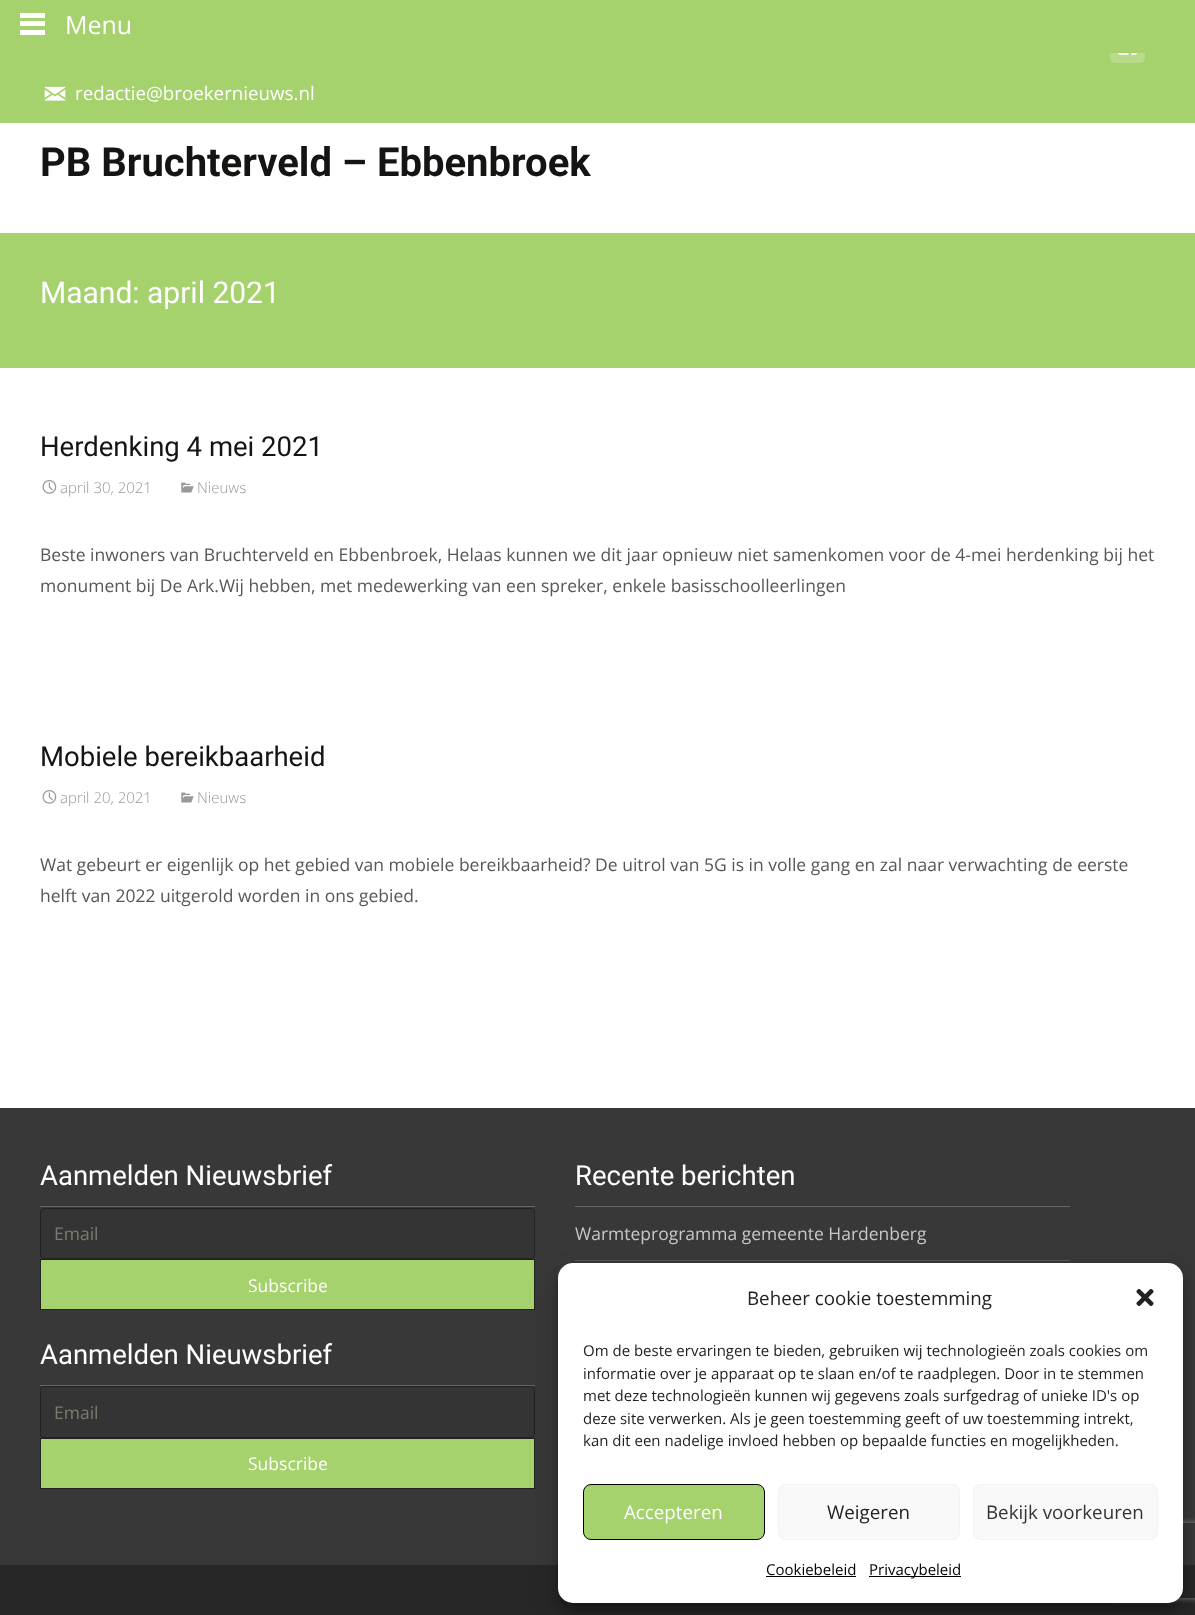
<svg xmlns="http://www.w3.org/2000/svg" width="1195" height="1615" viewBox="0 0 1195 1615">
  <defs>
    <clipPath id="clip1"><path d="M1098 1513H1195V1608H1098ZM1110.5 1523H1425.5C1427 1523 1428 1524 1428 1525.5V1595.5C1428 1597 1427 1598 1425.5 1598H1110.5C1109 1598 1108 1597 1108 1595.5V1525.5C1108 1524 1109 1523 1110.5 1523Z" clip-rule="evenodd"/></clipPath>
  </defs>
  <rect width="100%" height="100%" fill="rgb(255,255,255)"/>
  <rect x="0" y="53" width="1195" height="70" fill="rgb(165,210,109)"/>
  <rect x="1110" y="28" width="35" height="35" rx="5" fill="rgb(183,219,138)"/>
  <rect x="0" y="0" width="1195" height="53" fill="rgb(165,210,109)"/>
  <rect x="20" y="13" width="25" height="5" fill="rgb(255,255,255)"/>
  <rect x="20" y="21" width="25" height="5" fill="rgb(255,255,255)"/>
  <rect x="20" y="30" width="25" height="5" fill="rgb(255,255,255)"/>
  <text x="65" y="34" font-family="Open Sans" font-size="25" fill="rgb(255,255,255)">Menu</text>
  <image x="1117" y="53" width="21" height="2" href="pic1.png"/>
  <image x="44" y="86" width="22" height="15" href="pic2.png"/>
  <text x="75" y="100" font-family="Open Sans" font-size="18.75" fill="rgb(255,255,255)">redactie@broekernieuws.nl</text>
  <text x="40" y="176" font-family="Roboto" font-size="40" font-weight="bold" fill="rgb(20,20,18)">PB Bruchterveld – Ebbenbroek</text>
  <rect x="0" y="233" width="1195" height="135" fill="rgb(165,210,109)"/>
  <text x="40" y="303" font-family="Roboto" font-size="30" fill="rgb(255,255,255)">Maand: april 2021</text>
  <text x="40" y="456" font-family="Roboto" font-size="27.5" fill="rgb(20,20,18)">Herdenking 4 mei 2021</text>
  <image x="42" y="480" width="15" height="14" href="pic3.png"/>
  <text x="60" y="493" font-family="Open Sans" font-size="15" font-weight="300" fill="rgb(153,153,153)">april 30, 2021</text>
  <image x="181" y="482" width="13" height="11" href="pic4.png"/>
  <text x="197" y="493" font-family="Open Sans" font-size="15" font-weight="300" fill="rgb(153,153,153)">Nieuws</text>
  <g font-family="Open Sans" font-size="17.5" fill="rgb(87,87,87)">
    <text>
      <tspan x="40" y="561">Beste inwoners van Bruchterveld en Ebbenbroek, Helaas kunnen we dit jaar opnieuw niet samenkomen voor de 4-mei herdenking bij het</tspan>
      <tspan x="40" y="592">monument bij De Ark.Wij hebben, met medewerking van een spreker, enkele basisschoolleerlingen</tspan>
    </text>
  </g>
  <text x="40" y="766" font-family="Roboto" font-size="27.5" fill="rgb(20,20,18)">Mobiele bereikbaarheid</text>
  <image x="42" y="790" width="15" height="14" href="pic3.png"/>
  <text x="60" y="803" font-family="Open Sans" font-size="15" font-weight="300" fill="rgb(153,153,153)">april 20, 2021</text>
  <image x="181" y="792" width="13" height="11" href="pic4.png"/>
  <text x="197" y="803" font-family="Open Sans" font-size="15" font-weight="300" fill="rgb(153,153,153)">Nieuws</text>
  <g font-family="Open Sans" font-size="17.5" fill="rgb(87,87,87)">
    <text>
      <tspan x="40" y="871">Wat gebeurt er eigenlijk op het gebied van mobiele bereikbaarheid? De uitrol van 5G is in volle gang en zal naar verwachting de eerste</tspan>
      <tspan x="40" y="902">helft van 2022 uitgerold worden in ons gebied.</tspan>
    </text>
  </g>
  <rect x="0" y="1565" width="1195" height="50" fill="rgb(39,39,39)"/>
  <rect x="0" y="1108" width="1195" height="457" fill="rgb(56,56,56)"/>
  <rect x="40" y="1206" width="495" height="1" fill="rgb(103,103,103)"/>
  <text x="40" y="1185" font-family="Roboto" font-size="27.5" fill="rgb(255,255,255)">Aanmelden Nieuwsbrief</text>
  <rect x="40.5" y="1208.5" width="494" height="50" rx="3.5" fill="rgb(52,52,52)" stroke="rgb(34,34,34)"/>
  <text x="54" y="1240" font-family="Open Sans" font-size="17.5" fill="rgb(125,123,109)">Email</text>
  <rect x="40.5" y="1259.5" width="494" height="50" fill="rgb(165,210,109)" stroke="rgb(34,34,34)"/>
  <text x="248" y="1292" font-family="Open Sans" font-size="17.5" fill="rgb(255,255,255)">Subscribe</text>
  <rect x="575" y="1206" width="495" height="1" fill="rgb(103,103,103)"/>
  <text x="575" y="1185" font-family="Roboto" font-size="27.5" fill="rgb(255,255,255)">Recente berichten</text>
  <rect x="575" y="1260" width="495" height="1" fill="rgb(87,87,87)"/>
  <text x="575" y="1240" font-family="Open Sans" font-size="17.5" fill="rgb(199,199,199)">Warmteprogramma gemeente Hardenberg</text>
  <rect x="40" y="1385" width="495" height="1" fill="rgb(103,103,103)"/>
  <text x="40" y="1364" font-family="Roboto" font-size="27.5" fill="rgb(255,255,255)">Aanmelden Nieuwsbrief</text>
  <rect x="40.5" y="1386.5" width="494" height="51" rx="3.5" fill="rgb(52,52,52)" stroke="rgb(34,34,34)"/>
  <text x="54" y="1419" font-family="Open Sans" font-size="17.5" fill="rgb(125,123,109)">Email</text>
  <rect x="40.5" y="1438.5" width="494" height="50" fill="rgb(165,210,109)" stroke="rgb(34,34,34)"/>
  <text x="248" y="1470" font-family="Open Sans" font-size="17.5" fill="rgb(255,255,255)">Subscribe</text>
  <rect x="558" y="1270" width="625" height="340" rx="15" fill="rgba(0,0,0,0.23)" filter="blur(4px)"/>
  <rect x="558" y="1275" width="625" height="340" rx="15" fill="rgba(0,0,0,0.19)" filter="blur(12.5px)"/>
  <g clip-path="url(#clip1)">
    <rect x="1108" y="1523" width="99" height="75" rx="2.5" fill="rgb(128,128,128)" filter="blur(3px)"/>
  </g>
  <rect x="558" y="1263" width="625" height="340" rx="15" fill="rgb(255,255,255)"/>
  <text x="747" y="1305" font-family="Open Sans" font-size="18.75" fill="rgb(34,34,34)">Beheer cookie toestemming</text>
  <image x="1136" y="1288" width="18" height="18" href="pic5.png"/>
  <g font-family="Open Sans" font-size="15" fill="rgb(34,34,34)">
    <text>
      <tspan x="583" y="1356">Om de beste ervaringen te bieden, gebruiken wij technologieën zoals cookies om</tspan>
      <tspan x="583" y="1379">informatie over je apparaat op te slaan en/of te raadplegen. Door in te stemmen</tspan>
      <tspan x="583" y="1401">met deze technologieën kunnen wij gegevens zoals surfgedrag of unieke ID's op</tspan>
      <tspan x="583" y="1424">deze site verwerken. Als je geen toestemming geeft of uw toestemming intrekt,</tspan>
      <tspan x="583" y="1446">kan dit een nadelige invloed hebben op bepaalde functies en mogelijkheden.</tspan>
    </text>
  </g>
  <rect x="583.5" y="1484.5" width="181" height="55" rx="7.5" fill="rgb(165,210,109)" stroke="rgb(0,0,0)"/>
  <text x="624" y="1519" font-family="Open Sans" font-size="18.75" fill="rgb(255,255,255)">Accepteren</text>
  <rect x="778.5" y="1484.5" width="181" height="55" rx="7.5" fill="rgb(249,249,249)" stroke="rgb(242,242,242)"/>
  <text x="827" y="1519" font-family="Open Sans" font-size="18.75" fill="rgb(34,34,34)">Weigeren</text>
  <rect x="973.5" y="1484.5" width="184" height="55" rx="7.5" fill="rgb(249,249,249)" stroke="rgb(242,242,242)"/>
  <text x="986" y="1519" font-family="Open Sans" font-size="18.75" fill="rgb(51,51,51)">Bekijk voorkeuren</text>
  <text x="766" y="1575" font-family="Open Sans" font-size="15" fill="rgb(0,0,0)">Cookiebeleid</text>
  <rect x="766" y="1576" width="90" height="1" fill="rgb(0,0,0)"/>
  <rect x="869" y="1576" width="92" height="1" fill="rgb(0,0,0)"/>
  <text x="869" y="1575" font-family="Open Sans" font-size="15" fill="rgb(0,0,0)">Privacybeleid</text>
</svg>
